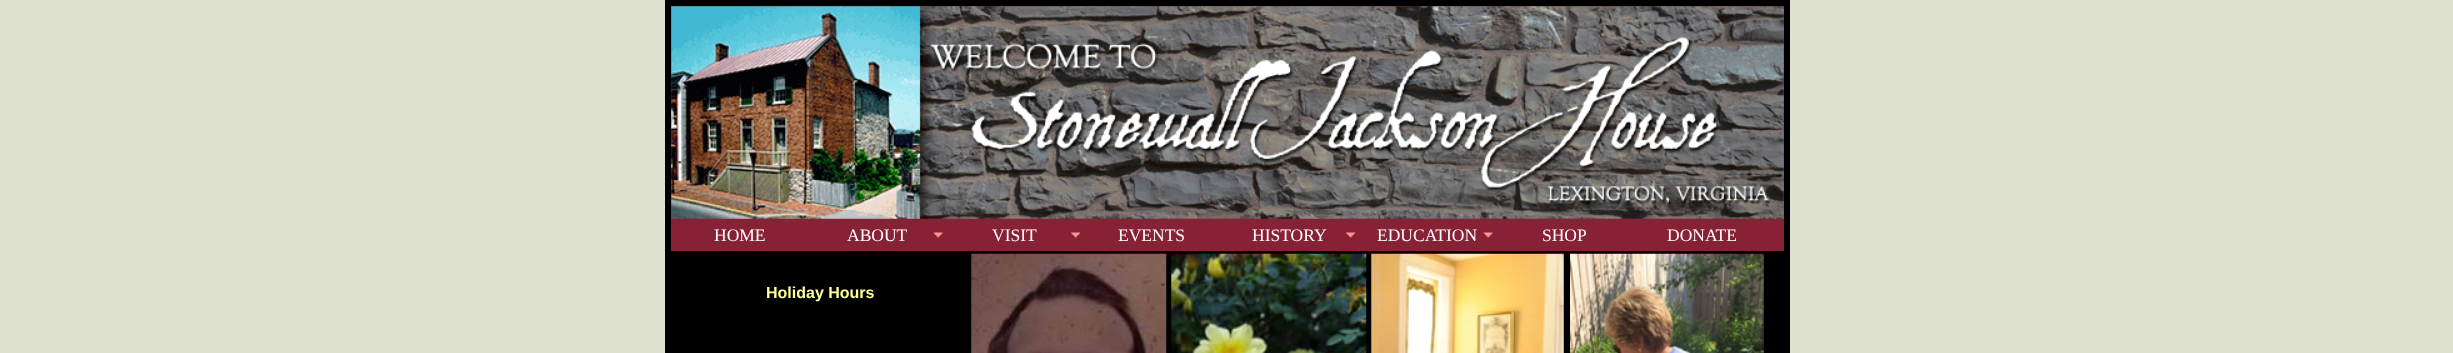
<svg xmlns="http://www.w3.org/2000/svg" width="2453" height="353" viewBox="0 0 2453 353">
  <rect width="100%" height="100%" fill="rgb(223,226,209)"/>
  <rect x="665" y="0" width="1125" height="353" fill="rgb(0,0,0)"/>
  <rect x="671" y="6" width="1113" height="245" fill="rgb(135,33,53)"/>
  <image x="671" y="6" width="1113" height="213" href="pic1.png"/>
  <text x="714" y="241" font-family="Liberation Serif" font-size="17.5" fill="rgb(255,255,255)">HOME</text>
  <image x="933" y="232" width="10" height="6" href="pic2.png"/>
  <text x="847" y="241" font-family="Liberation Serif" font-size="17.5" fill="rgb(255,255,255)">ABOUT</text>
  <image x="1071" y="232" width="9" height="6" href="pic3.png"/>
  <g font-family="Liberation Serif" font-size="17.5" fill="rgb(255,255,255)">
    <text x="992" y="241">VISIT</text>
    <text x="1118" y="241">EVENTS</text>
  </g>
  <image x="1346" y="232" width="9" height="6" href="pic3.png"/>
  <text x="1252" y="241" font-family="Liberation Serif" font-size="17.5" fill="rgb(255,255,255)">HISTORY</text>
  <image x="1483" y="232" width="10" height="6" href="pic4.png"/>
  <g font-family="Liberation Serif" font-size="17.5" fill="rgb(255,255,255)">
    <text x="1377" y="241">EDUCATION</text>
    <text x="1542" y="241">SHOP</text>
    <text x="1667" y="241">DONATE</text>
  </g>
  <text x="766" y="298" font-family="Liberation Sans" font-size="16" font-weight="bold" fill="rgb(255,255,153)">Holiday Hours</text>
  <image x="971" y="253" width="196" height="100" href="pic5.png"/>
  <image x="1171" y="253" width="196" height="100" href="pic6.png"/>
  <image x="1371" y="253" width="193" height="100" href="pic7.png"/>
  <image x="1570" y="253" width="194" height="100" href="pic8.png"/>
</svg>
